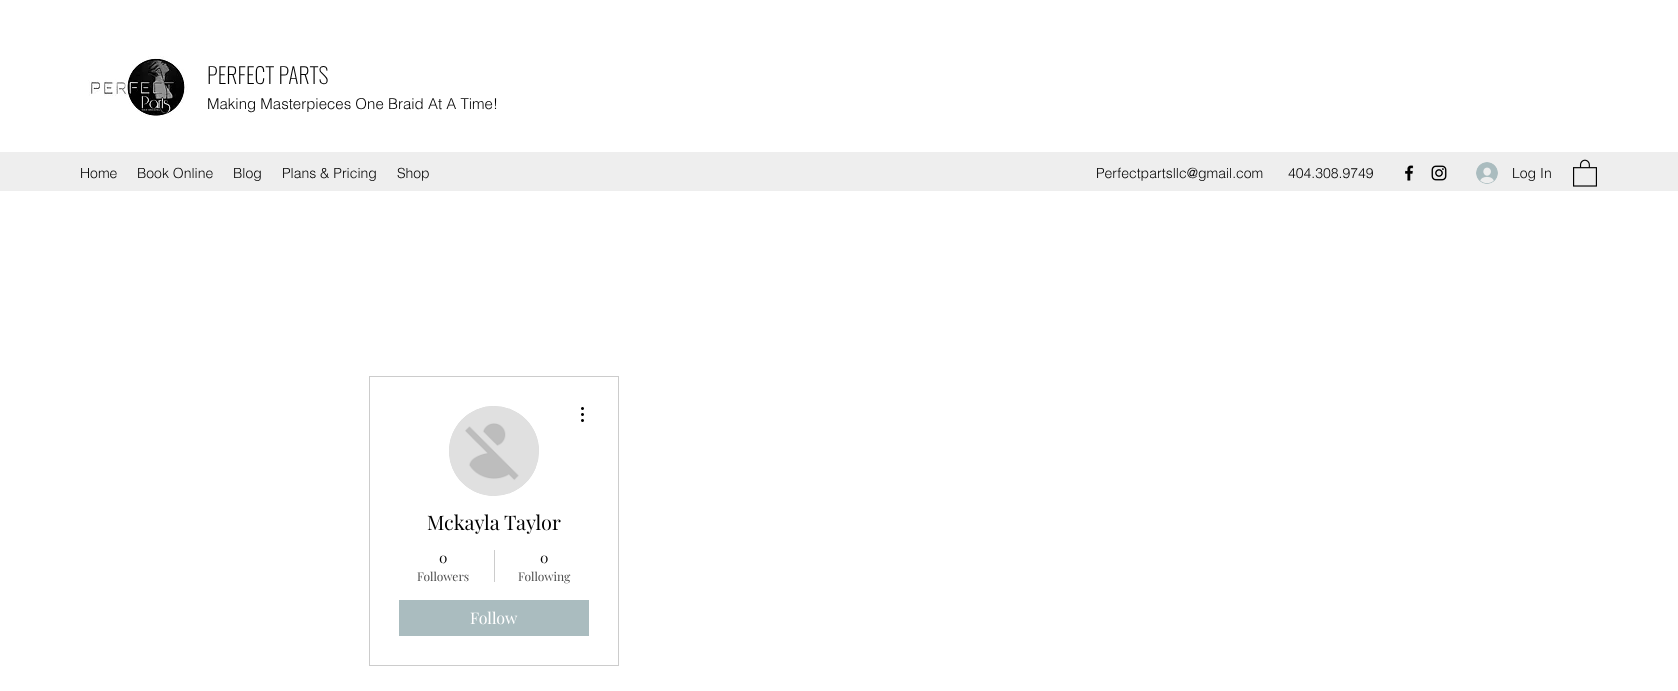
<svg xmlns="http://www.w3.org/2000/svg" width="1678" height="691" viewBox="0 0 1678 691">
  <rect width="100%" height="100%" fill="rgb(255,255,255)"/>
  <image x="88" y="56" width="100" height="60" href="pic1.png"/>
  <text x="207" y="84" font-family="Oswald" font-size="22" font-weight="200" fill="rgb(0,0,0)">PERFECT PARTS</text>
  <text x="207" y="109" font-family="helvetica" font-size="15" font-weight="300" fill="rgb(0,0,0)">Making Masterpieces One Braid At A Time!</text>
  <rect x="0" y="152" width="1678" height="39" fill="rgb(238,238,238)"/>
  <g font-family="helvetica" font-size="14" font-weight="300" fill="rgb(0,0,0)">
    <text x="80" y="178">Home</text>
    <text x="137" y="178">Book Online</text>
    <text x="233" y="178">Blog</text>
    <text x="282" y="178">Plans &amp; Pricing</text>
    <text x="397" y="178">Shop</text>
    <text x="1096" y="178">Perfectpartsllc@gmail.com</text>
    <text x="1288" y="178">404.308.9749</text>
  </g>
  <image x="1405" y="165" width="9" height="16" href="pic2.png"/>
  <image x="1431" y="165" width="16" height="16" href="pic3.png"/>
  <image x="1476" y="162" width="22" height="22" href="pic4.png"/>
  <text x="1512" y="178" font-family="helvetica" font-size="14" font-weight="300" fill="rgb(0,0,0)">Log In</text>
  <image x="1573" y="159" width="24" height="28" href="pic5.png"/>
  <rect x="369.5" y="376.5" width="249" height="289" fill="none" stroke="rgb(204,204,204)"/>
  <circle cx="494" cy="451" r="45" fill="rgb(216,216,216)"/>
  <image x="449" y="406" width="90" height="90" href="pic6.png"/>
  <image x="581" y="407" width="3" height="15" href="pic7.png"/>
  <text x="427" y="530" font-family="Playfair Display" font-size="20" fill="rgb(0,0,0)">Mckayla Taylor</text>
  <text x="439" y="563" font-family="Playfair Display" font-size="14" fill="rgb(0,0,0)">0</text>
  <text x="417" y="581" font-family="Playfair Display" font-size="12" fill="rgb(77,77,77)">Followers</text>
  <rect x="494" y="550" width="1" height="32" fill="rgb(204,204,204)"/>
  <text x="540" y="563" font-family="Playfair Display" font-size="14" fill="rgb(0,0,0)">0</text>
  <text x="518" y="581" font-family="Playfair Display" font-size="12" fill="rgb(77,77,77)">Following</text>
  <rect x="399" y="600" width="190" height="36" fill="rgb(170,188,191)"/>
  <text x="470" y="624" font-family="Playfair Display" font-size="16" fill="rgb(255,255,255)">Follow</text>
</svg>
